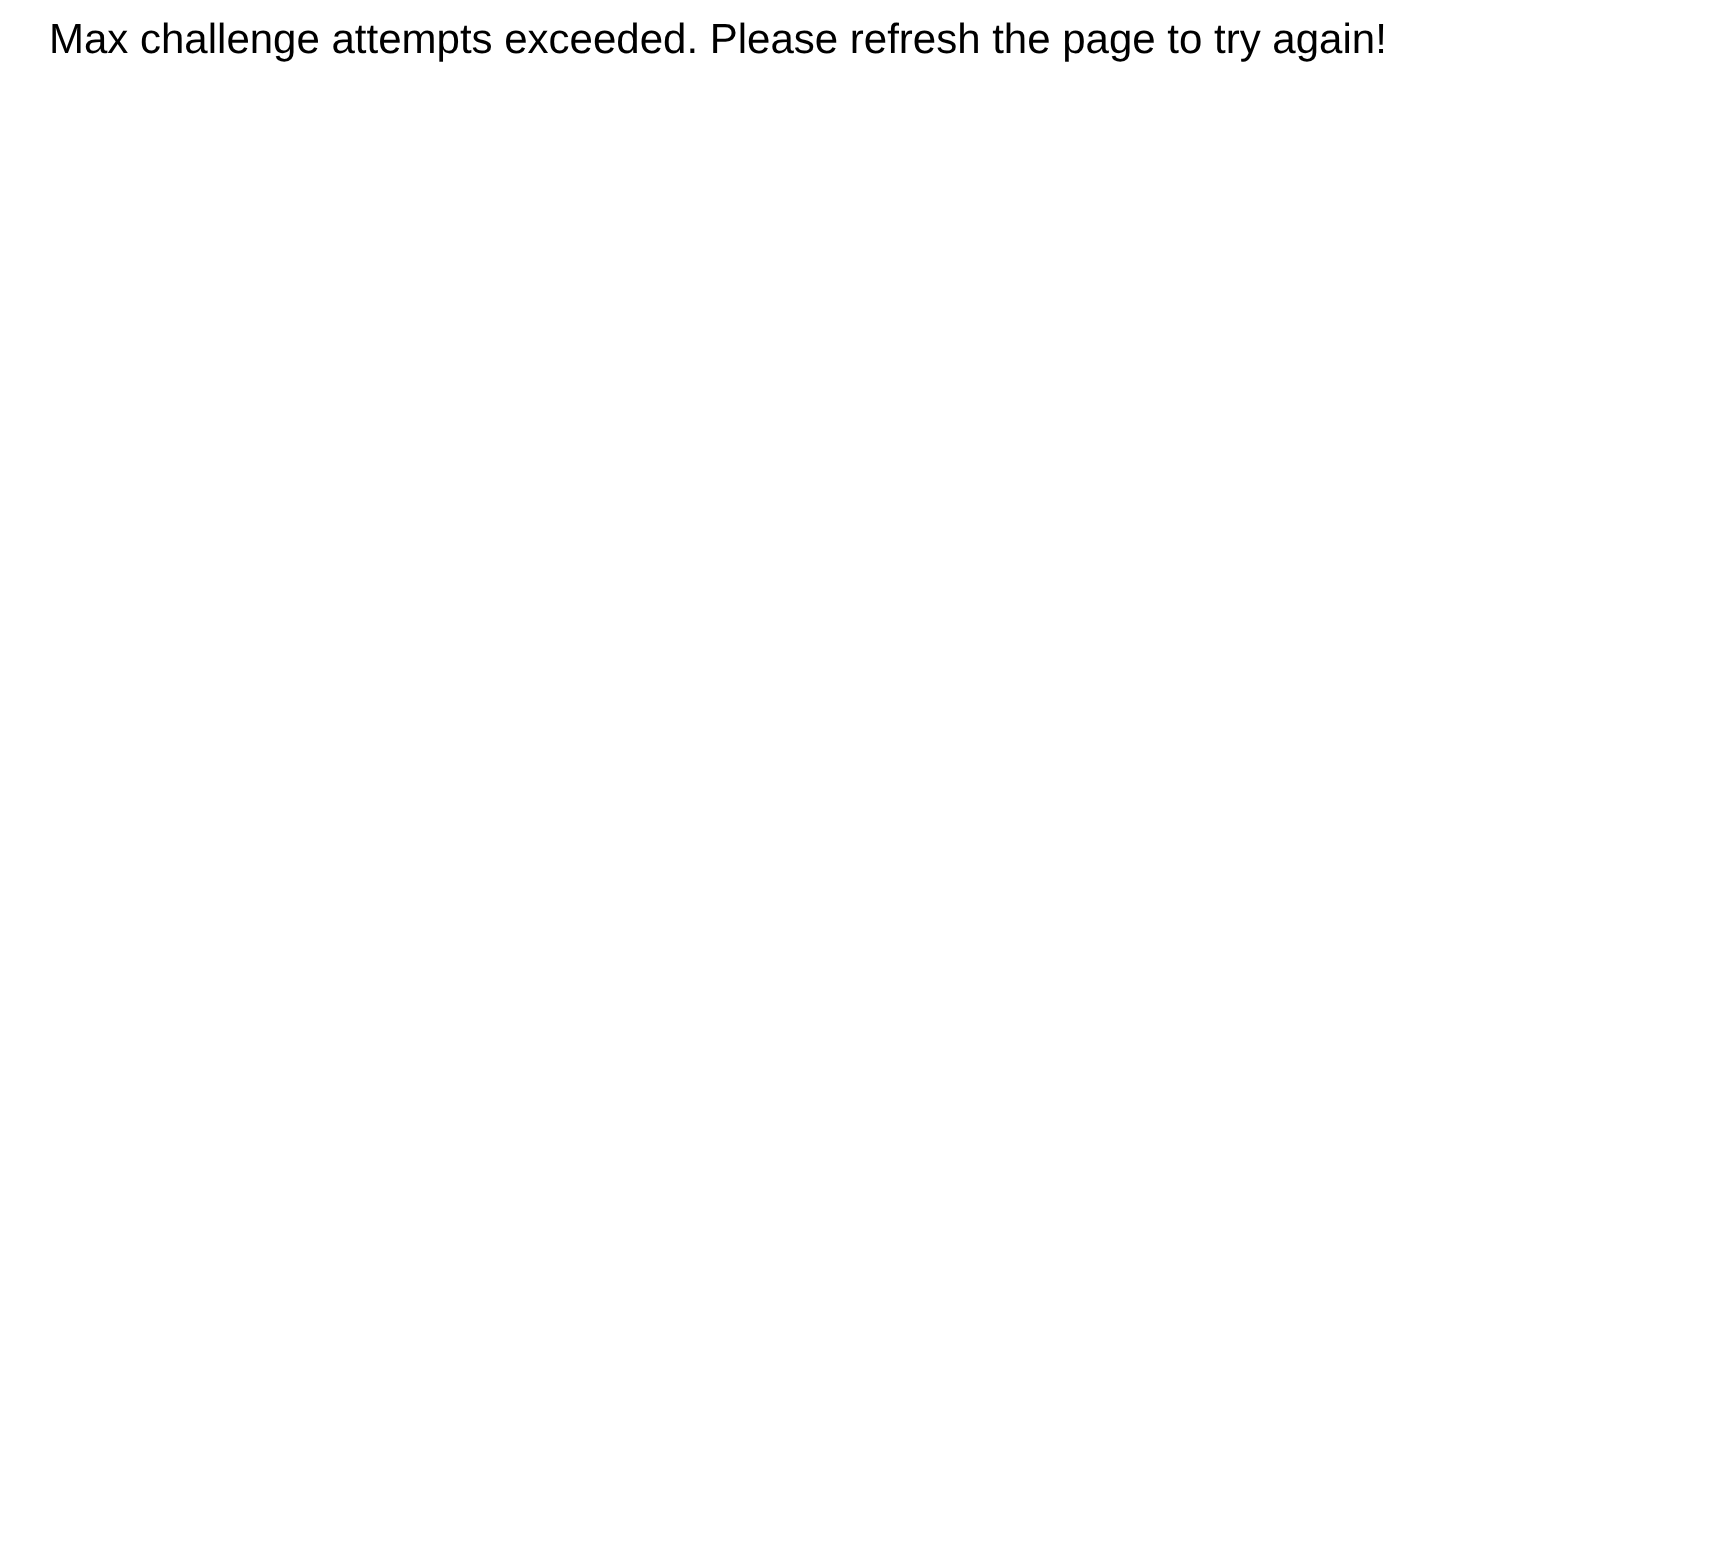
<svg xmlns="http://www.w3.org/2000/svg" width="1720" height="1551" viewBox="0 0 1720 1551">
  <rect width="100%" height="100%" fill="rgb(255,255,255)"/>
  <text x="49" y="53" font-family="Liberation Sans" font-size="42" fill="rgb(0,0,0)">Max challenge attempts exceeded. Please refresh the page to try again!</text>
</svg>
